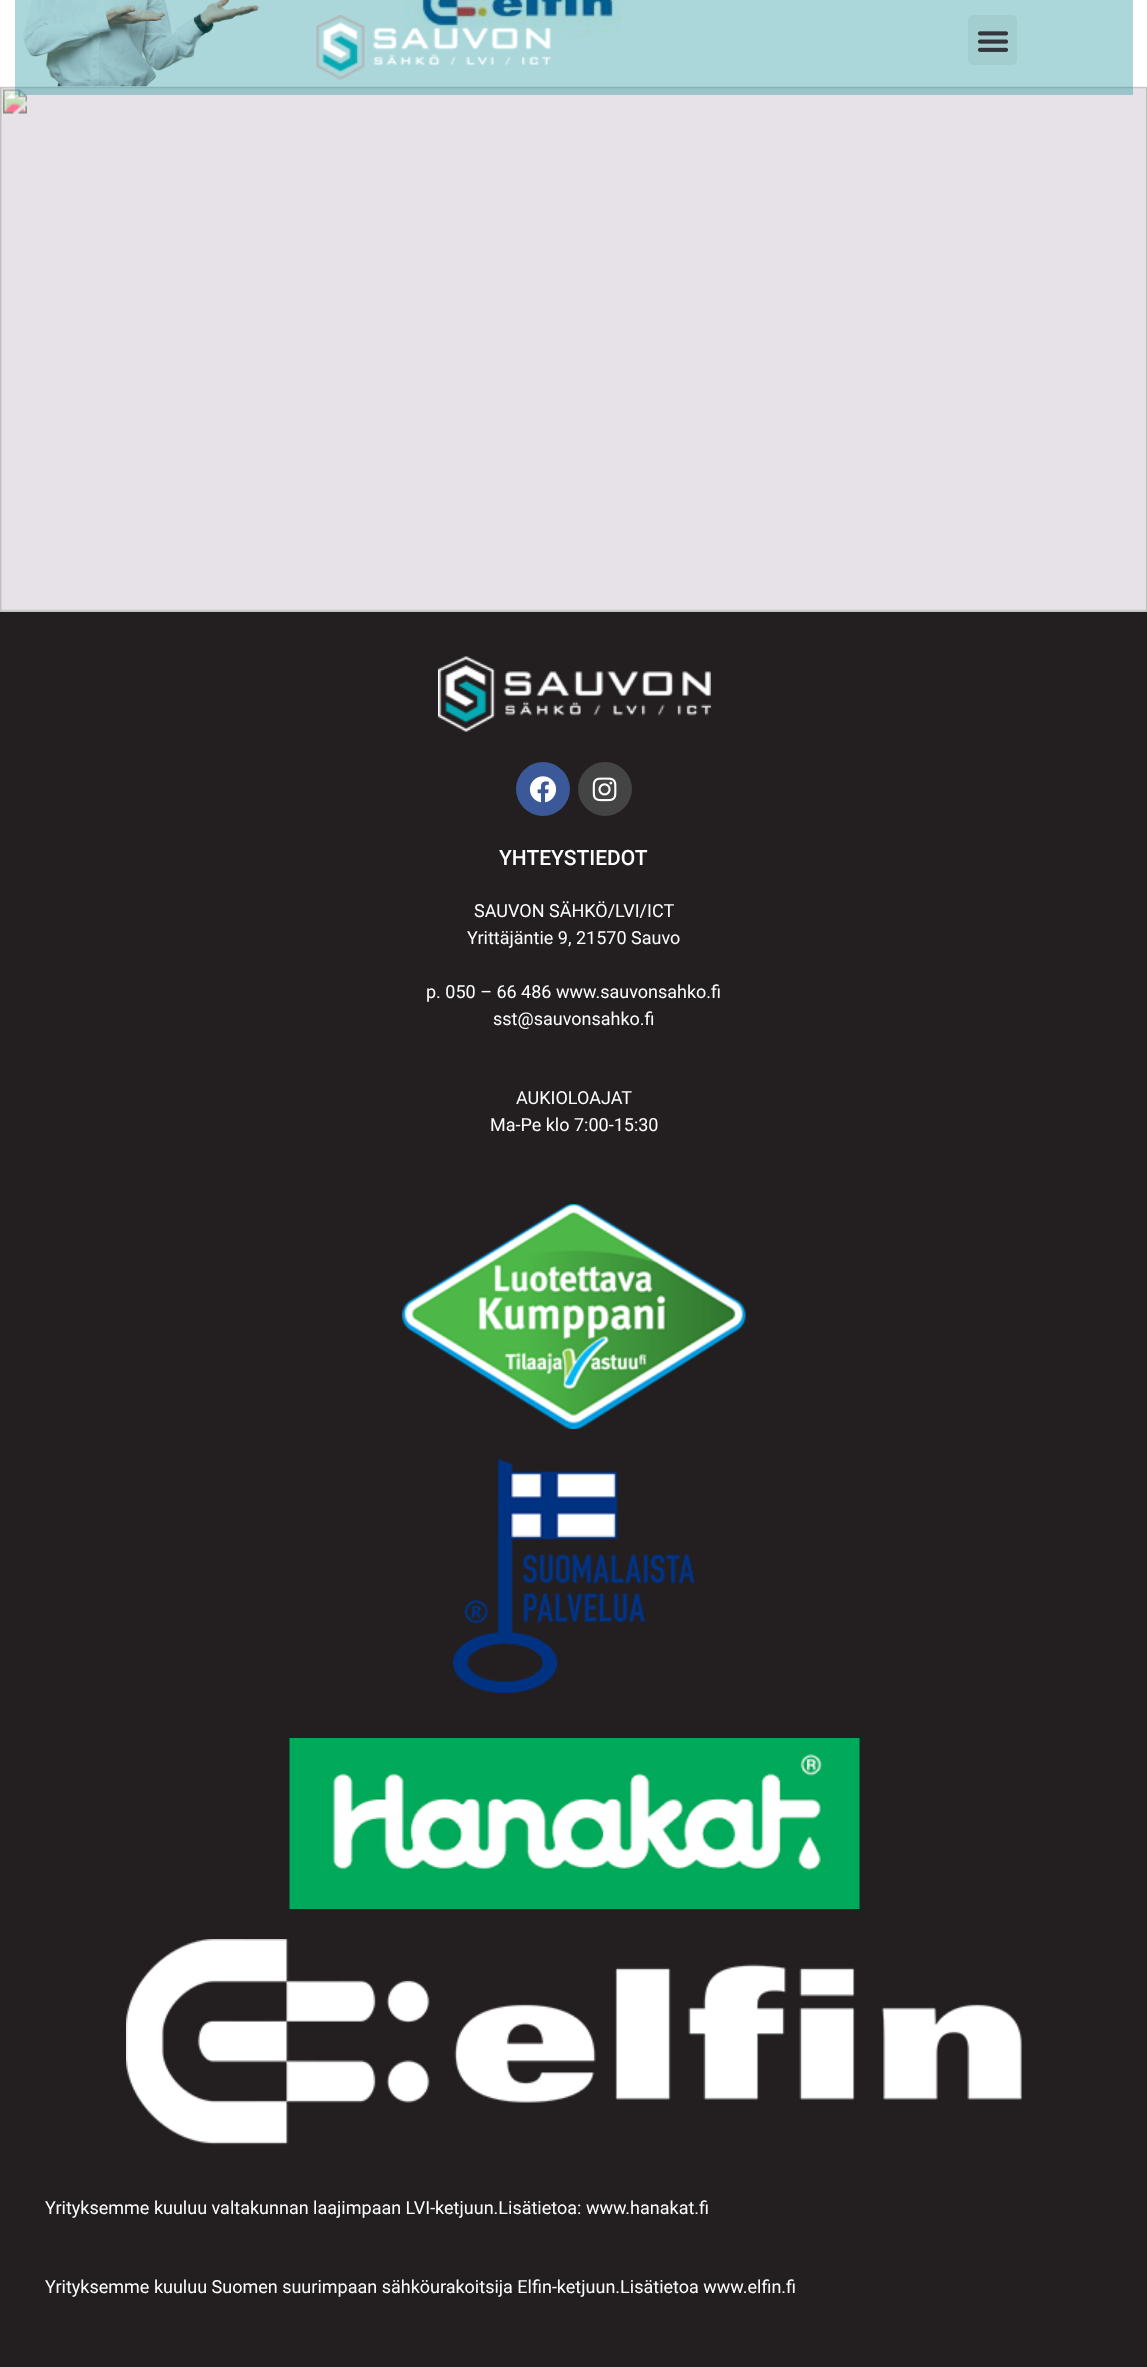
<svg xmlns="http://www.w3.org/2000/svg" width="1147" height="2367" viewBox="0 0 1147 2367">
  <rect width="100%" height="100%" fill="rgb(255,255,255)"/>
  <image x="23" y="0" width="241" height="87" href="pic3.png"/>
  <image x="405" y="0" width="217" height="38" href="pic4.png"/>
  <image x="0" y="86" width="1147" height="526" href="pic5.png"/>
  <rect x="15" y="0" width="1118" height="95" fill="rgba(0,136,143,0.16)"/>
  <rect x="15" y="0" width="1118" height="95" fill="rgba(0,136,143,0.2)"/>
  <image x="316" y="15" width="235" height="65" href="pic1.png"/>
  <rect x="968" y="15" width="49" height="50" rx="5" fill="rgb(163,205,207)"/>
  <image x="977" y="31" width="32" height="21" href="pic2.png"/>
  <rect x="0" y="612" width="1147" height="1755" fill="rgb(35,31,32)"/>
  <image x="438" y="656" width="273" height="76" href="pic6.png"/>
  <circle cx="543" cy="789" r="27" fill="rgb(59,89,152)"/>
  <image x="529" y="776" width="28" height="27" href="pic7.png"/>
  <circle cx="605" cy="789" r="27" fill="rgb(68,68,68)"/>
  <image x="592" y="777" width="25" height="25" href="pic8.png"/>
  <text x="499" y="865" font-family="Roboto" font-size="21" font-weight="500" fill="rgb(255,255,255)">YHTEYSTIEDOT</text>
  <g font-family="Roboto" font-size="18" fill="rgb(255,255,255)">
    <text x="474" y="917">SAUVON SÄHKÖ/LVI/ICT</text>
    <text x="467" y="944">Yrittäjäntie 9, 21570 Sauvo</text>
    <text x="426" y="998">p. 050 – 66 486 www.sauvonsahko.fi</text>
    <text x="493" y="1025">sst@sauvonsahko.fi</text>
    <text x="516" y="1104">AUKIOLOAJAT</text>
    <text x="490" y="1131">Ma-Pe klo 7:00-15:30</text>
  </g>
  <image x="402" y="1204" width="344" height="225" href="pic9.png"/>
  <image x="453" y="1459" width="242" height="234" href="pic10.png"/>
  <image x="289" y="1738" width="571" height="171" href="pic11.png"/>
  <image x="126" y="1939" width="896" height="206" href="pic12.png"/>
  <g font-family="Roboto" font-size="18" fill="rgb(255,255,255)">
    <text x="45" y="2214">Yrityksemme kuuluu valtakunnan laajimpaan LVI-ketjuun.Lisätietoa: www.hanakat.fi</text>
    <text x="45" y="2293">Yrityksemme kuuluu Suomen suurimpaan sähköurakoitsija Elfin-ketjuun.Lisätietoa www.elfin.fi</text>
  </g>
</svg>
